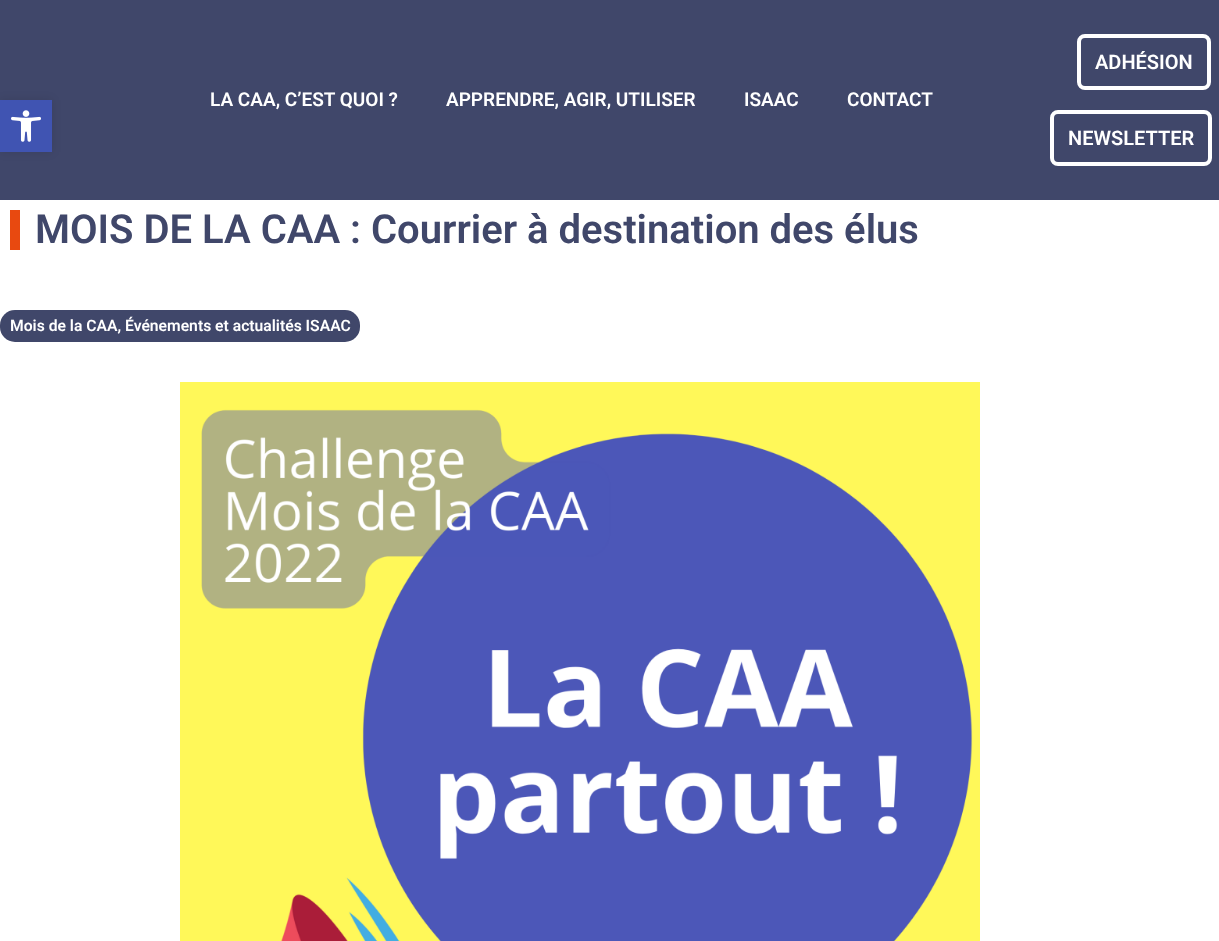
<svg xmlns="http://www.w3.org/2000/svg" width="1219" height="941" viewBox="0 0 1219 941">
  <rect width="100%" height="100%" fill="rgb(255,255,255)"/>
  <rect x="0" y="0" width="1219" height="200" fill="rgb(64,71,106)"/>
  <rect x="0" y="100" width="52" height="52" fill="rgba(0,0,0,0.1)" filter="blur(5px)"/>
  <rect x="0" y="100" width="52" height="52" fill="rgb(64,84,178)"/>
  <image x="11" y="110" width="30" height="32" href="pic1.png"/>
  <g font-family="Roboto" font-size="19" font-weight="600" fill="rgb(255,255,255)">
    <text x="210" y="106">LA CAA, C’EST QUOI ?</text>
    <text x="446" y="106">APPRENDRE, AGIR, UTILISER</text>
    <text x="744" y="106">ISAAC</text>
    <text x="847" y="106">CONTACT</text>
  </g>
  <rect x="1079" y="36" width="130" height="52" rx="6" fill="none" stroke="rgb(255,255,255)" stroke-width="4"/>
  <text x="1095" y="69" font-family="Roboto" font-size="20" font-weight="600" fill="rgb(255,255,255)">ADHÉSION</text>
  <rect x="1052" y="112" width="158" height="52" rx="6" fill="none" stroke="rgb(255,255,255)" stroke-width="4"/>
  <text x="1068" y="145" font-family="Roboto" font-size="20" font-weight="600" fill="rgb(255,255,255)">NEWSLETTER</text>
  <rect x="10" y="210" width="10" height="40" fill="rgb(232,73,16)"/>
  <text x="35" y="243" font-family="Roboto" font-size="40" font-weight="600" fill="rgb(64,71,106)">MOIS DE LA CAA : Courrier à destination des élus</text>
  <rect x="0" y="310" width="360" height="32" rx="15" fill="rgb(64,71,106)"/>
  <text x="10" y="331" font-family="Roboto" font-size="15.7" font-weight="600" fill="rgb(255,255,255)">Mois de la CAA, Événements et actualités ISAAC</text>
  <image x="180" y="382" width="800" height="559" href="pic2.png"/>
</svg>
